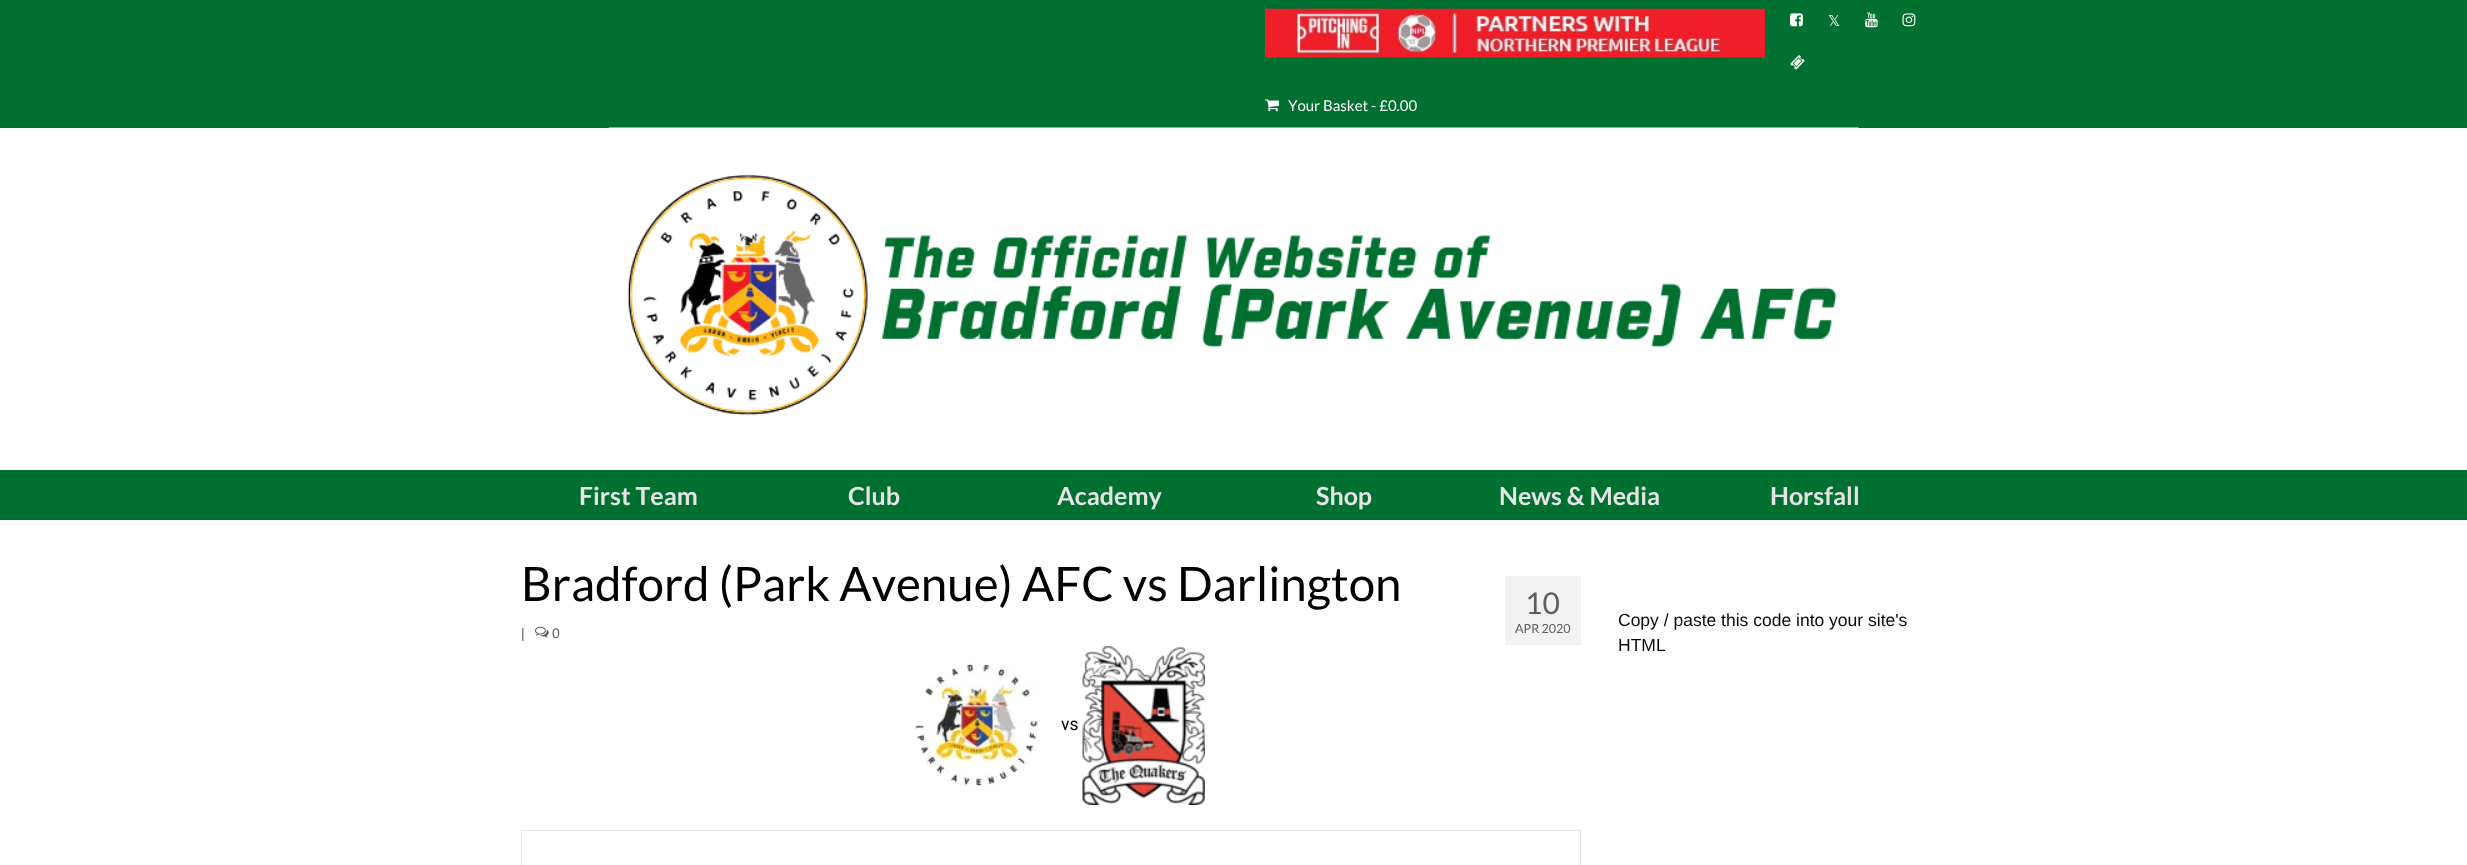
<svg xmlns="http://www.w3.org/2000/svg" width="2467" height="865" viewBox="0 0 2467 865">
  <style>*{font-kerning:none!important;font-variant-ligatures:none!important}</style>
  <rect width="100%" height="100%" fill="rgb(255,255,255)"/>
  <rect x="0" y="0" width="2467" height="128" fill="rgb(0,112,48)"/>
  <image x="1265" y="8" width="500" height="50" href="pic1.png"/>
  <image x="1790" y="13" width="13" height="14" href="pic2.png"/>
  <text x="1828" y="26" font-family="DejaVu Sans" font-size="15" fill="rgb(255,255,255)">𝕏</text>
  <image x="1865" y="12" width="13" height="16" href="pic3.png"/>
  <image x="1902" y="13" width="14" height="14" href="pic4.png"/>
  <image x="1790" y="55" width="15" height="15" href="pic5.png"/>
  <image x="1265" y="99" width="14" height="13" href="pic6.png"/>
  <text x="1288" y="111" font-family="Lato" font-size="15" fill="rgb(255,255,255)">Your Basket - £0.00</text>
  <image x="608" y="127" width="1251" height="289" href="pic7.png"/>
  <rect x="0" y="470" width="2467" height="50" fill="rgb(0,112,48)"/>
  <g font-family="Lato" font-size="25" font-weight="bold" fill="rgb(229,229,229)">
    <text x="579" y="505">First Team</text>
    <text x="848" y="505">Club</text>
    <text x="1057" y="505">Academy</text>
    <text x="1316" y="505">Shop</text>
    <text x="1499" y="505">News &amp; Media</text>
    <text x="1770" y="505">Horsfall</text>
  </g>
  <text x="521" y="601" font-family="Lato" font-size="47.5" fill="rgb(0,0,0)">Bradford (Park Avenue) AFC vs Darlington</text>
  <text x="521" y="638" font-family="Liberation Sans" font-size="14" fill="rgb(94,94,94)">|</text>
  <image x="535" y="626" width="14" height="12" href="pic8.png"/>
  <text x="552" y="638" font-family="Liberation Sans" font-size="14" fill="rgb(94,94,94)">0</text>
  <rect x="1505" y="576" width="76" height="69" fill="rgb(242,242,242)"/>
  <text x="1525" y="614" font-family="Lato" font-size="30" fill="rgb(94,94,94)">10</text>
  <text x="1515" y="633" font-family="Lato" font-size="12.5" fill="rgb(94,94,94)">APR 2020</text>
  <image x="914" y="663" width="127" height="124" href="pic9.png"/>
  <text x="1061" y="730" font-family="Roboto" font-size="17.5" fill="rgb(0,0,0)">vs</text>
  <image x="1082" y="646" width="123" height="159" href="pic10.png"/>
  <rect x="521" y="830" width="1060" height="1" fill="rgb(229,229,229)"/>
  <rect x="1580" y="830" width="1" height="35" fill="rgb(229,229,229)"/>
  <rect x="521" y="830" width="1" height="35" fill="rgb(229,229,229)"/>
  <g font-family="Liberation Sans" font-size="17.5" fill="rgb(10,10,10)">
    <text>
      <tspan x="1618" y="626">Copy / paste this code into your site's</tspan>
      <tspan x="1618" y="651">HTML</tspan>
    </text>
  </g>
</svg>
